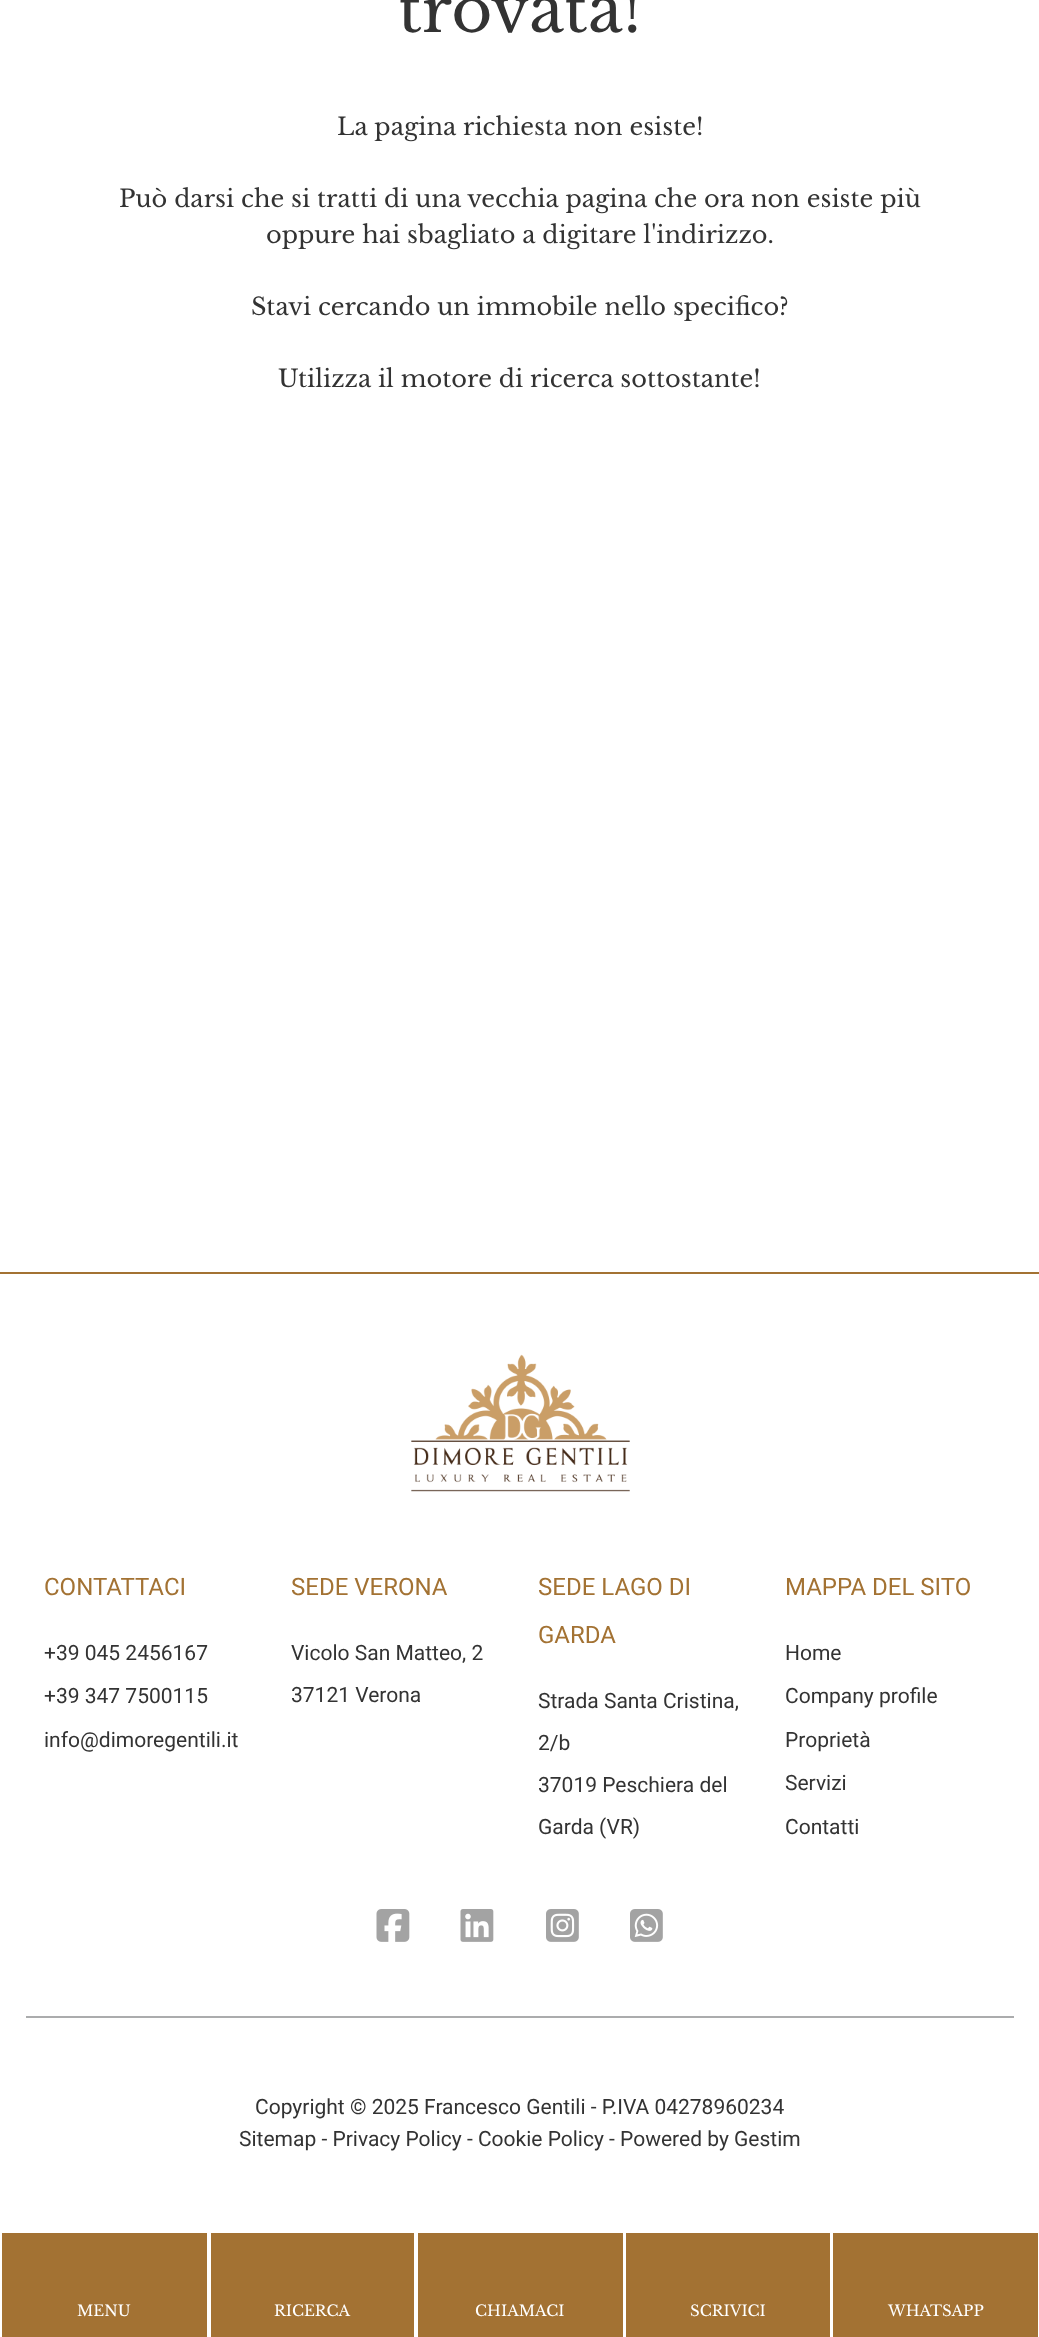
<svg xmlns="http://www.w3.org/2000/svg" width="1039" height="2337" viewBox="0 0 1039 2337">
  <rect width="100%" height="100%" fill="rgb(255,255,255)"/>
  <text x="398" y="32" font-family="Libre Baskerville" font-size="63" fill="rgb(51,51,51)">trovata!</text>
  <g font-family="Libre Baskerville" font-size="24" fill="rgb(51,51,51)">
    <text x="337" y="135">La pagina richiesta non esiste!</text>
    <text x="119" y="207">Può darsi che si tratti di una vecchia pagina che ora non esiste più</text>
    <text x="266" y="243">oppure hai sbagliato a digitare l'indirizzo.</text>
    <text x="251" y="315">Stavi cercando un immobile nello specifico?</text>
    <text x="278" y="387">Utilizza il motore di ricerca sottostante!</text>
  </g>
  <rect x="0" y="1272" width="1039" height="2" fill="rgb(163,114,51)"/>
  <image x="411" y="1354" width="219" height="138" href="pic1.png"/>
  <text x="44" y="1595" font-family="Roboto" font-size="24" fill="rgb(163,114,51)">CONTATTACI</text>
  <g font-family="Roboto" font-size="21" fill="rgb(51,51,51)">
    <text x="44" y="1660">+39 045 2456167</text>
    <text x="44" y="1703">+39 347 7500115</text>
    <text x="44" y="1747">‍info@dimoregentili.it</text>
  </g>
  <text x="291" y="1595" font-family="Roboto" font-size="24" fill="rgb(163,114,51)">SEDE VERONA</text>
  <g font-family="Roboto" font-size="21" fill="rgb(51,51,51)">
    <text x="291" y="1660">Vicolo San Matteo, 2</text>
    <text x="291" y="1702">37121 Verona</text>
  </g>
  <g font-family="Roboto" font-size="24" fill="rgb(163,114,51)">
    <text x="538" y="1595">SEDE LAGO DI</text>
    <text x="538" y="1643">GARDA</text>
  </g>
  <g font-family="Roboto" font-size="21" fill="rgb(51,51,51)">
    <text x="538" y="1708">Strada Santa Cristina,</text>
    <text x="538" y="1750">2/b</text>
    <text x="538" y="1792">37019 Peschiera del</text>
    <text x="538" y="1834">Garda (VR)</text>
  </g>
  <text x="785" y="1595" font-family="Roboto" font-size="24" fill="rgb(163,114,51)">MAPPA DEL SITO</text>
  <g font-family="Roboto" font-size="21" fill="rgb(51,51,51)">
    <text x="785" y="1660">Home</text>
    <text x="785" y="1703">Company profile</text>
    <text x="785" y="1747">Proprietà</text>
    <text x="785" y="1790">Servizi</text>
    <text x="785" y="1834">Contatti</text>
  </g>
  <image x="376" y="1909" width="34" height="33" href="pic2.png"/>
  <image x="460" y="1909" width="34" height="33" href="pic3.png"/>
  <image x="546" y="1909" width="33" height="33" href="pic4.png"/>
  <image x="630" y="1909" width="33" height="33" href="pic5.png"/>
  <rect x="26" y="2016" width="988" height="2" fill="rgb(171,172,173)"/>
  <g font-family="Roboto" font-size="21" fill="rgb(51,51,51)">
    <text x="255" y="2114">Copyright © 2025 Francesco Gentili - P.IVA 04278960234</text>
    <text x="239" y="2146">Sitemap - Privacy Policy - Cookie Policy - Powered by Gestim</text>
  </g>
  <rect x="2" y="2233" width="1036" height="104" fill="rgb(163,114,51)"/>
  <rect x="207" y="2231" width="4" height="106" fill="rgb(255,255,255)"/>
  <text x="77" y="2316" font-family="Libre Baskerville" font-size="15" fill="rgb(255,255,255)">MENU</text>
  <rect x="414" y="2231" width="4" height="106" fill="rgb(255,255,255)"/>
  <text x="274" y="2316" font-family="Libre Baskerville" font-size="15" fill="rgb(255,255,255)">RICERCA</text>
  <rect x="623" y="2231" width="3" height="106" fill="rgb(255,255,255)"/>
  <text x="475" y="2316" font-family="Libre Baskerville" font-size="15" fill="rgb(255,255,255)">CHIAMACI</text>
  <rect x="830" y="2231" width="3" height="106" fill="rgb(255,255,255)"/>
  <g font-family="Libre Baskerville" font-size="15" fill="rgb(255,255,255)">
    <text x="690" y="2316">SCRIVICI</text>
    <text x="888" y="2316">WHATSAPP</text>
  </g>
</svg>
